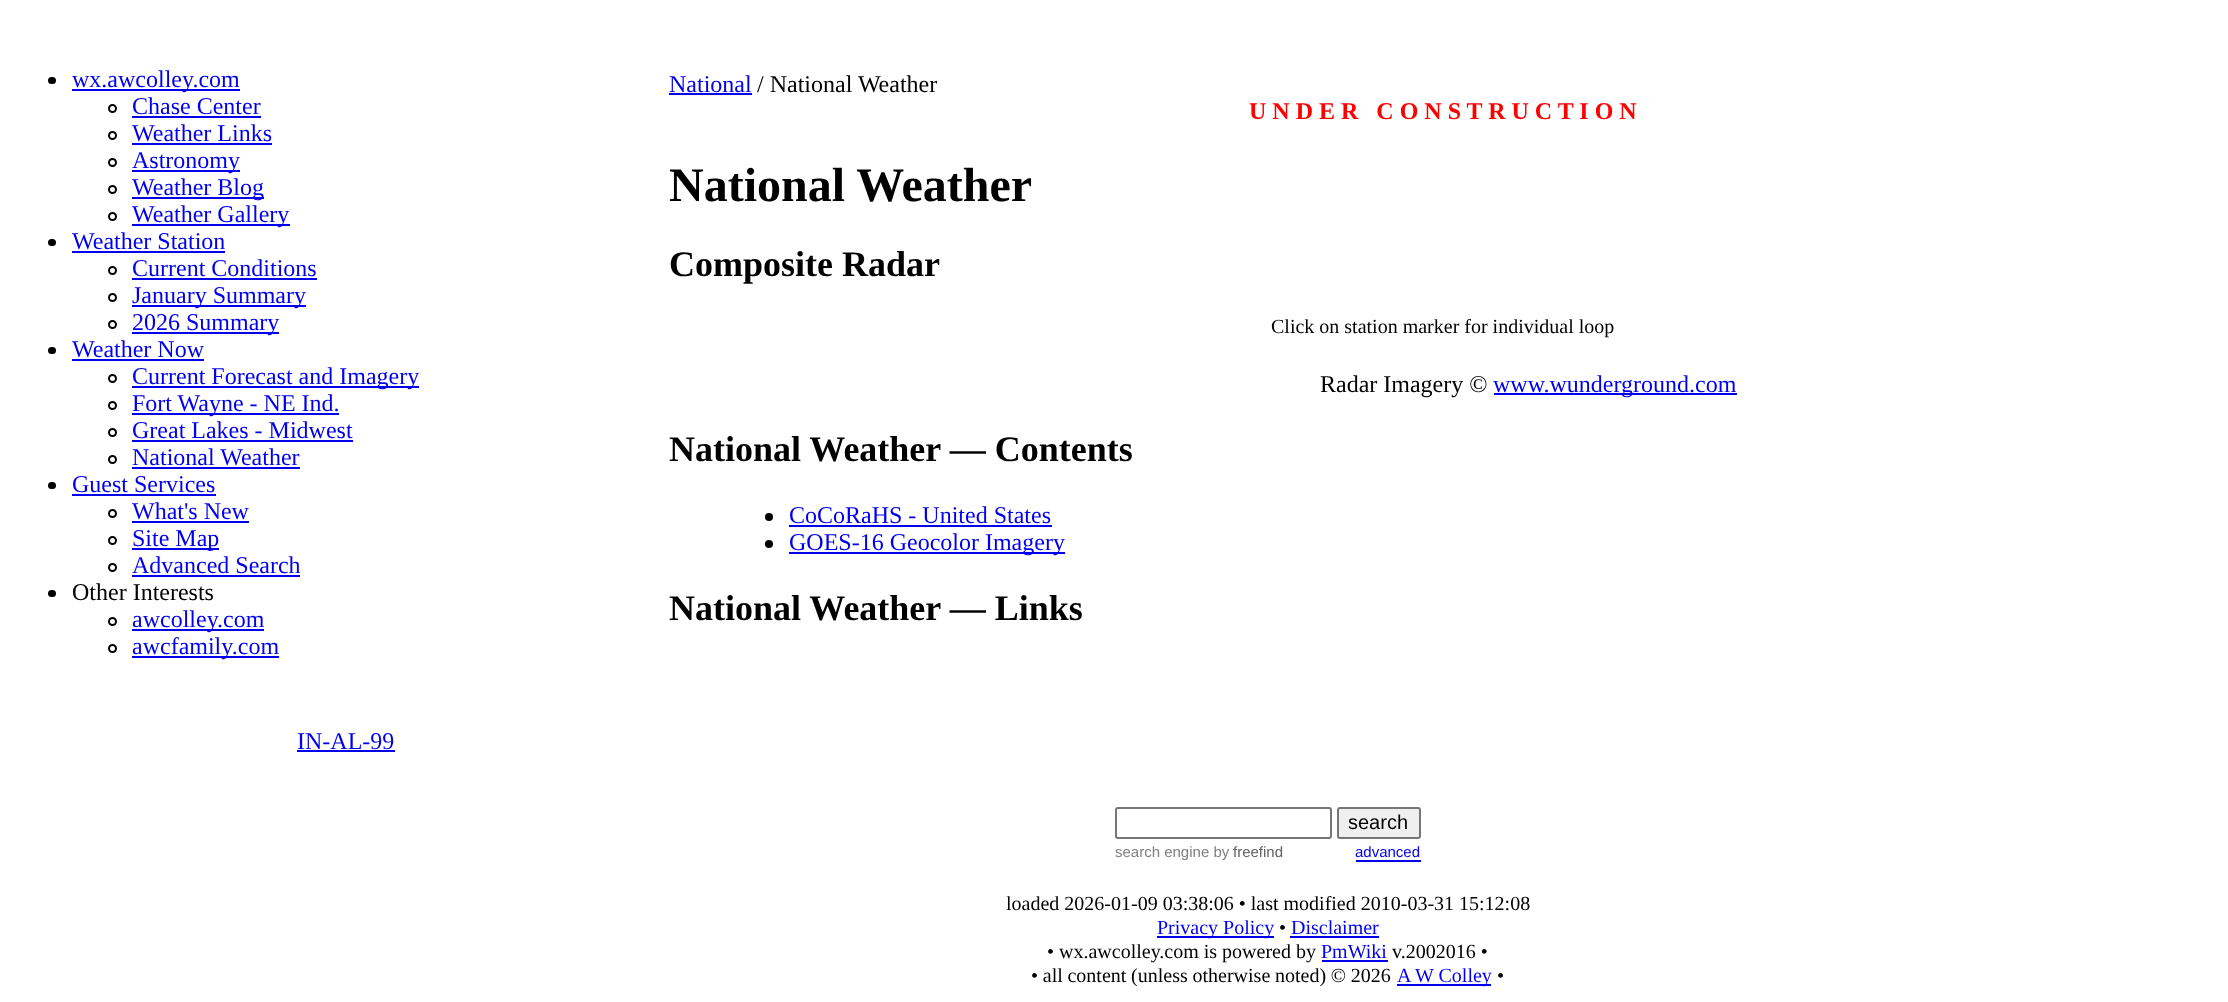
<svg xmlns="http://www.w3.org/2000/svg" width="2228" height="1002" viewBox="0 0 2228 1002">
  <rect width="100%" height="100%" fill="rgb(255,255,255)"/>
  <rect x="48" y="77" width="8" height="7" rx="3.5" fill="rgb(0,0,0)"/>
  <rect x="72" y="89" width="168" height="2" fill="rgb(0,0,238)"/>
  <text x="72" y="87" font-family="Liberation Serif" font-size="24" fill="rgb(0,0,238)">wx.awcolley.com</text>
  <circle cx="112.5" cy="108.5" r="3.5" fill="none" stroke="rgb(0,0,0)" stroke-width="2"/>
  <text x="132" y="114" font-family="Liberation Serif" font-size="24" fill="rgb(0,0,238)">Chase Center</text>
  <rect x="132" y="116" width="129" height="2" fill="rgb(0,0,238)"/>
  <circle cx="112.5" cy="135.5" r="3.5" fill="none" stroke="rgb(0,0,0)" stroke-width="2"/>
  <text x="132" y="141" font-family="Liberation Serif" font-size="24" fill="rgb(0,0,238)">Weather Links</text>
  <rect x="132" y="143" width="140" height="2" fill="rgb(0,0,238)"/>
  <circle cx="112.5" cy="162.5" r="3.5" fill="none" stroke="rgb(0,0,0)" stroke-width="2"/>
  <rect x="132" y="170" width="108" height="2" fill="rgb(0,0,238)"/>
  <text x="132" y="168" font-family="Liberation Serif" font-size="24" fill="rgb(0,0,238)">Astronomy</text>
  <circle cx="112.5" cy="189.5" r="3.5" fill="none" stroke="rgb(0,0,0)" stroke-width="2"/>
  <rect x="132" y="197" width="132" height="2" fill="rgb(0,0,238)"/>
  <text x="132" y="195" font-family="Liberation Serif" font-size="24" fill="rgb(0,0,238)">Weather Blog</text>
  <circle cx="112.5" cy="216.5" r="3.5" fill="none" stroke="rgb(0,0,0)" stroke-width="2"/>
  <rect x="132" y="224" width="158" height="2" fill="rgb(0,0,238)"/>
  <text x="132" y="222" font-family="Liberation Serif" font-size="24" fill="rgb(0,0,238)">Weather Gallery</text>
  <rect x="48" y="239" width="8" height="7" rx="3.5" fill="rgb(0,0,0)"/>
  <text x="72" y="249" font-family="Liberation Serif" font-size="24" fill="rgb(0,0,238)">Weather Station</text>
  <rect x="72" y="251" width="153" height="2" fill="rgb(0,0,238)"/>
  <circle cx="112.5" cy="270.5" r="3.5" fill="none" stroke="rgb(0,0,0)" stroke-width="2"/>
  <text x="132" y="276" font-family="Liberation Serif" font-size="24" fill="rgb(0,0,238)">Current Conditions</text>
  <rect x="132" y="278" width="185" height="2" fill="rgb(0,0,238)"/>
  <circle cx="112.5" cy="297.5" r="3.5" fill="none" stroke="rgb(0,0,0)" stroke-width="2"/>
  <rect x="132" y="305" width="174" height="2" fill="rgb(0,0,238)"/>
  <text x="132" y="303" font-family="Liberation Serif" font-size="24" fill="rgb(0,0,238)">January Summary</text>
  <circle cx="112.5" cy="324.5" r="3.5" fill="none" stroke="rgb(0,0,0)" stroke-width="2"/>
  <rect x="132" y="332" width="147" height="2" fill="rgb(0,0,238)"/>
  <text x="132" y="330" font-family="Liberation Serif" font-size="24" fill="rgb(0,0,238)">2026 Summary</text>
  <rect x="48" y="347" width="8" height="7" rx="3.5" fill="rgb(0,0,0)"/>
  <text x="72" y="357" font-family="Liberation Serif" font-size="24" fill="rgb(0,0,238)">Weather Now</text>
  <rect x="72" y="359" width="132" height="2" fill="rgb(0,0,238)"/>
  <circle cx="112.5" cy="378.5" r="3.5" fill="none" stroke="rgb(0,0,0)" stroke-width="2"/>
  <rect x="132" y="386" width="287" height="2" fill="rgb(0,0,238)"/>
  <text x="132" y="384" font-family="Liberation Serif" font-size="24" fill="rgb(0,0,238)">Current Forecast and Imagery</text>
  <circle cx="112.5" cy="405.5" r="3.5" fill="none" stroke="rgb(0,0,0)" stroke-width="2"/>
  <rect x="132" y="413" width="207" height="2" fill="rgb(0,0,238)"/>
  <text x="132" y="411" font-family="Liberation Serif" font-size="24" fill="rgb(0,0,238)">Fort Wayne - NE Ind.</text>
  <circle cx="112.5" cy="432.5" r="3.5" fill="none" stroke="rgb(0,0,0)" stroke-width="2"/>
  <text x="132" y="438" font-family="Liberation Serif" font-size="24" fill="rgb(0,0,238)">Great Lakes - Midwest</text>
  <rect x="132" y="440" width="221" height="2" fill="rgb(0,0,238)"/>
  <circle cx="112.5" cy="459.5" r="3.5" fill="none" stroke="rgb(0,0,0)" stroke-width="2"/>
  <text x="132" y="465" font-family="Liberation Serif" font-size="24" fill="rgb(0,0,238)">National Weather</text>
  <rect x="132" y="467" width="168" height="2" fill="rgb(0,0,238)"/>
  <rect x="48" y="482" width="8" height="7" rx="3.5" fill="rgb(0,0,0)"/>
  <text x="72" y="492" font-family="Liberation Serif" font-size="24" fill="rgb(0,0,238)">Guest Services</text>
  <rect x="72" y="494" width="144" height="2" fill="rgb(0,0,238)"/>
  <circle cx="112.5" cy="513.5" r="3.5" fill="none" stroke="rgb(0,0,0)" stroke-width="2"/>
  <text x="132" y="519" font-family="Liberation Serif" font-size="24" fill="rgb(0,0,238)">What's New</text>
  <rect x="132" y="521" width="117" height="2" fill="rgb(0,0,238)"/>
  <circle cx="112.5" cy="540.5" r="3.5" fill="none" stroke="rgb(0,0,0)" stroke-width="2"/>
  <rect x="132" y="548" width="87" height="2" fill="rgb(0,0,238)"/>
  <text x="132" y="546" font-family="Liberation Serif" font-size="24" fill="rgb(0,0,238)">Site Map</text>
  <circle cx="112.5" cy="567.5" r="3.5" fill="none" stroke="rgb(0,0,0)" stroke-width="2"/>
  <text x="132" y="573" font-family="Liberation Serif" font-size="24" fill="rgb(0,0,238)">Advanced Search</text>
  <rect x="132" y="575" width="168" height="2" fill="rgb(0,0,238)"/>
  <rect x="48" y="590" width="8" height="7" rx="3.5" fill="rgb(0,0,0)"/>
  <text x="72" y="600" font-family="Liberation Serif" font-size="24" fill="rgb(0,0,0)">Other Interests</text>
  <circle cx="112.5" cy="621.5" r="3.5" fill="none" stroke="rgb(0,0,0)" stroke-width="2"/>
  <rect x="132" y="629" width="132" height="2" fill="rgb(0,0,238)"/>
  <text x="132" y="627" font-family="Liberation Serif" font-size="24" fill="rgb(0,0,238)">awcolley.com</text>
  <circle cx="112.5" cy="648.5" r="3.5" fill="none" stroke="rgb(0,0,0)" stroke-width="2"/>
  <rect x="132" y="656" width="147" height="2" fill="rgb(0,0,238)"/>
  <g font-family="Liberation Serif" font-size="24" fill="rgb(0,0,238)">
    <text x="132" y="654">awcfamily.com</text>
    <text x="297" y="749">IN-AL-99</text>
  </g>
  <rect x="297" y="750" width="98" height="2" fill="rgb(0,0,238)"/>
  <text x="669" y="92" font-family="Liberation Serif" font-size="24" fill="rgb(0,0,238)">National</text>
  <rect x="669" y="93" width="83" height="2" fill="rgb(0,0,238)"/>
  <text x="757" y="92" font-family="Liberation Serif" font-size="24" fill="rgb(0,0,0)">/ National Weather</text>
  <text x="1249" y="119" font-family="Liberation Serif" font-size="24" font-weight="bold" fill="rgb(255,0,0)" xml:space="preserve">U N D E R   C O N S T R U C T I O N</text>
  <text x="669" y="201" font-family="Liberation Serif" font-size="48" font-weight="bold" fill="rgb(0,0,0)">National Weather</text>
  <text x="669" y="276" font-family="Liberation Serif" font-size="36" font-weight="bold" fill="rgb(0,0,0)">Composite Radar</text>
  <text x="1271" y="333" font-family="Liberation Serif" font-size="20" fill="rgb(0,0,0)">Click on station marker for individual loop</text>
  <text x="1320" y="392" font-family="Liberation Serif" font-size="24" fill="rgb(0,0,0)">Radar Imagery ©</text>
  <rect x="1494" y="393" width="243" height="2" fill="rgb(0,0,238)"/>
  <text x="1493" y="392" font-family="Liberation Serif" font-size="24" fill="rgb(0,0,238)">www.wunderground.com</text>
  <text x="669" y="461" font-family="Liberation Serif" font-size="36" font-weight="bold" fill="rgb(0,0,0)">National Weather — Contents</text>
  <circle cx="769" cy="517" r="4" fill="rgb(0,0,0)"/>
  <text x="789" y="523" font-family="Liberation Serif" font-size="24" fill="rgb(0,0,238)">CoCoRaHS - United States</text>
  <rect x="789" y="525" width="263" height="2" fill="rgb(0,0,238)"/>
  <circle cx="769" cy="544" r="4" fill="rgb(0,0,0)"/>
  <rect x="789" y="552" width="276" height="2" fill="rgb(0,0,238)"/>
  <text x="789" y="550" font-family="Liberation Serif" font-size="24" fill="rgb(0,0,238)">GOES-16 Geocolor Imagery</text>
  <text x="669" y="620" font-family="Liberation Serif" font-size="36" font-weight="bold" fill="rgb(0,0,0)">National Weather — Links</text>
  <rect x="1116" y="808" width="215" height="30" rx="2" fill="none" stroke="rgb(118,118,118)" stroke-width="2"/>
  <rect x="1338" y="808" width="82" height="30" rx="2" fill="rgb(239,239,239)" stroke="rgb(118,118,118)" stroke-width="2"/>
  <text x="1348" y="829" font-family="Liberation Sans" font-size="20" fill="rgb(0,0,0)">search</text>
  <text x="1115" y="857" font-family="Liberation Sans" font-size="15" fill="rgb(128,128,128)">search engine by</text>
  <text x="1233" y="857" font-family="Liberation Sans" font-size="15" fill="rgb(96,96,96)">freefind</text>
  <text x="1355" y="857" font-family="Liberation Sans" font-size="15" fill="rgb(0,0,238)">advanced</text>
  <rect x="1356" y="860" width="65" height="2" fill="rgb(0,0,238)"/>
  <text x="1006" y="910" font-family="Liberation Serif" font-size="20" fill="rgb(0,0,0)">loaded 2026-01-09 03:38:06 • last modified 2010-03-31 15:12:08</text>
  <rect x="1157" y="936" width="117" height="2" fill="rgb(0,0,238)"/>
  <text x="1157" y="934" font-family="Liberation Serif" font-size="20" fill="rgb(0,0,238)">Privacy Policy</text>
  <text x="1279" y="934" font-family="Liberation Serif" font-size="20" fill="rgb(0,0,0)">•</text>
  <text x="1291" y="934" font-family="Liberation Serif" font-size="20" fill="rgb(0,0,238)">Disclaimer</text>
  <rect x="1290" y="936" width="89" height="2" fill="rgb(0,0,238)"/>
  <text x="1047" y="958" font-family="Liberation Serif" font-size="20" fill="rgb(0,0,0)">• wx.awcolley.com is powered by</text>
  <text x="1321" y="958" font-family="Liberation Serif" font-size="20" fill="rgb(0,0,238)">PmWiki</text>
  <rect x="1322" y="960" width="66" height="2" fill="rgb(0,0,238)"/>
  <g font-family="Liberation Serif" font-size="20" fill="rgb(0,0,0)">
    <text x="1392" y="958">v.2002016 •</text>
    <text x="1031" y="982" word-spacing="-0.25">• all content (unless otherwise noted) © 2026</text>
  </g>
  <rect x="1397" y="984" width="94" height="2" fill="rgb(0,0,238)"/>
  <text x="1397" y="982" font-family="Liberation Serif" font-size="20" fill="rgb(0,0,238)">A W Colley</text>
  <text x="1497" y="982" font-family="Liberation Serif" font-size="20" fill="rgb(0,0,0)">•</text>
</svg>
